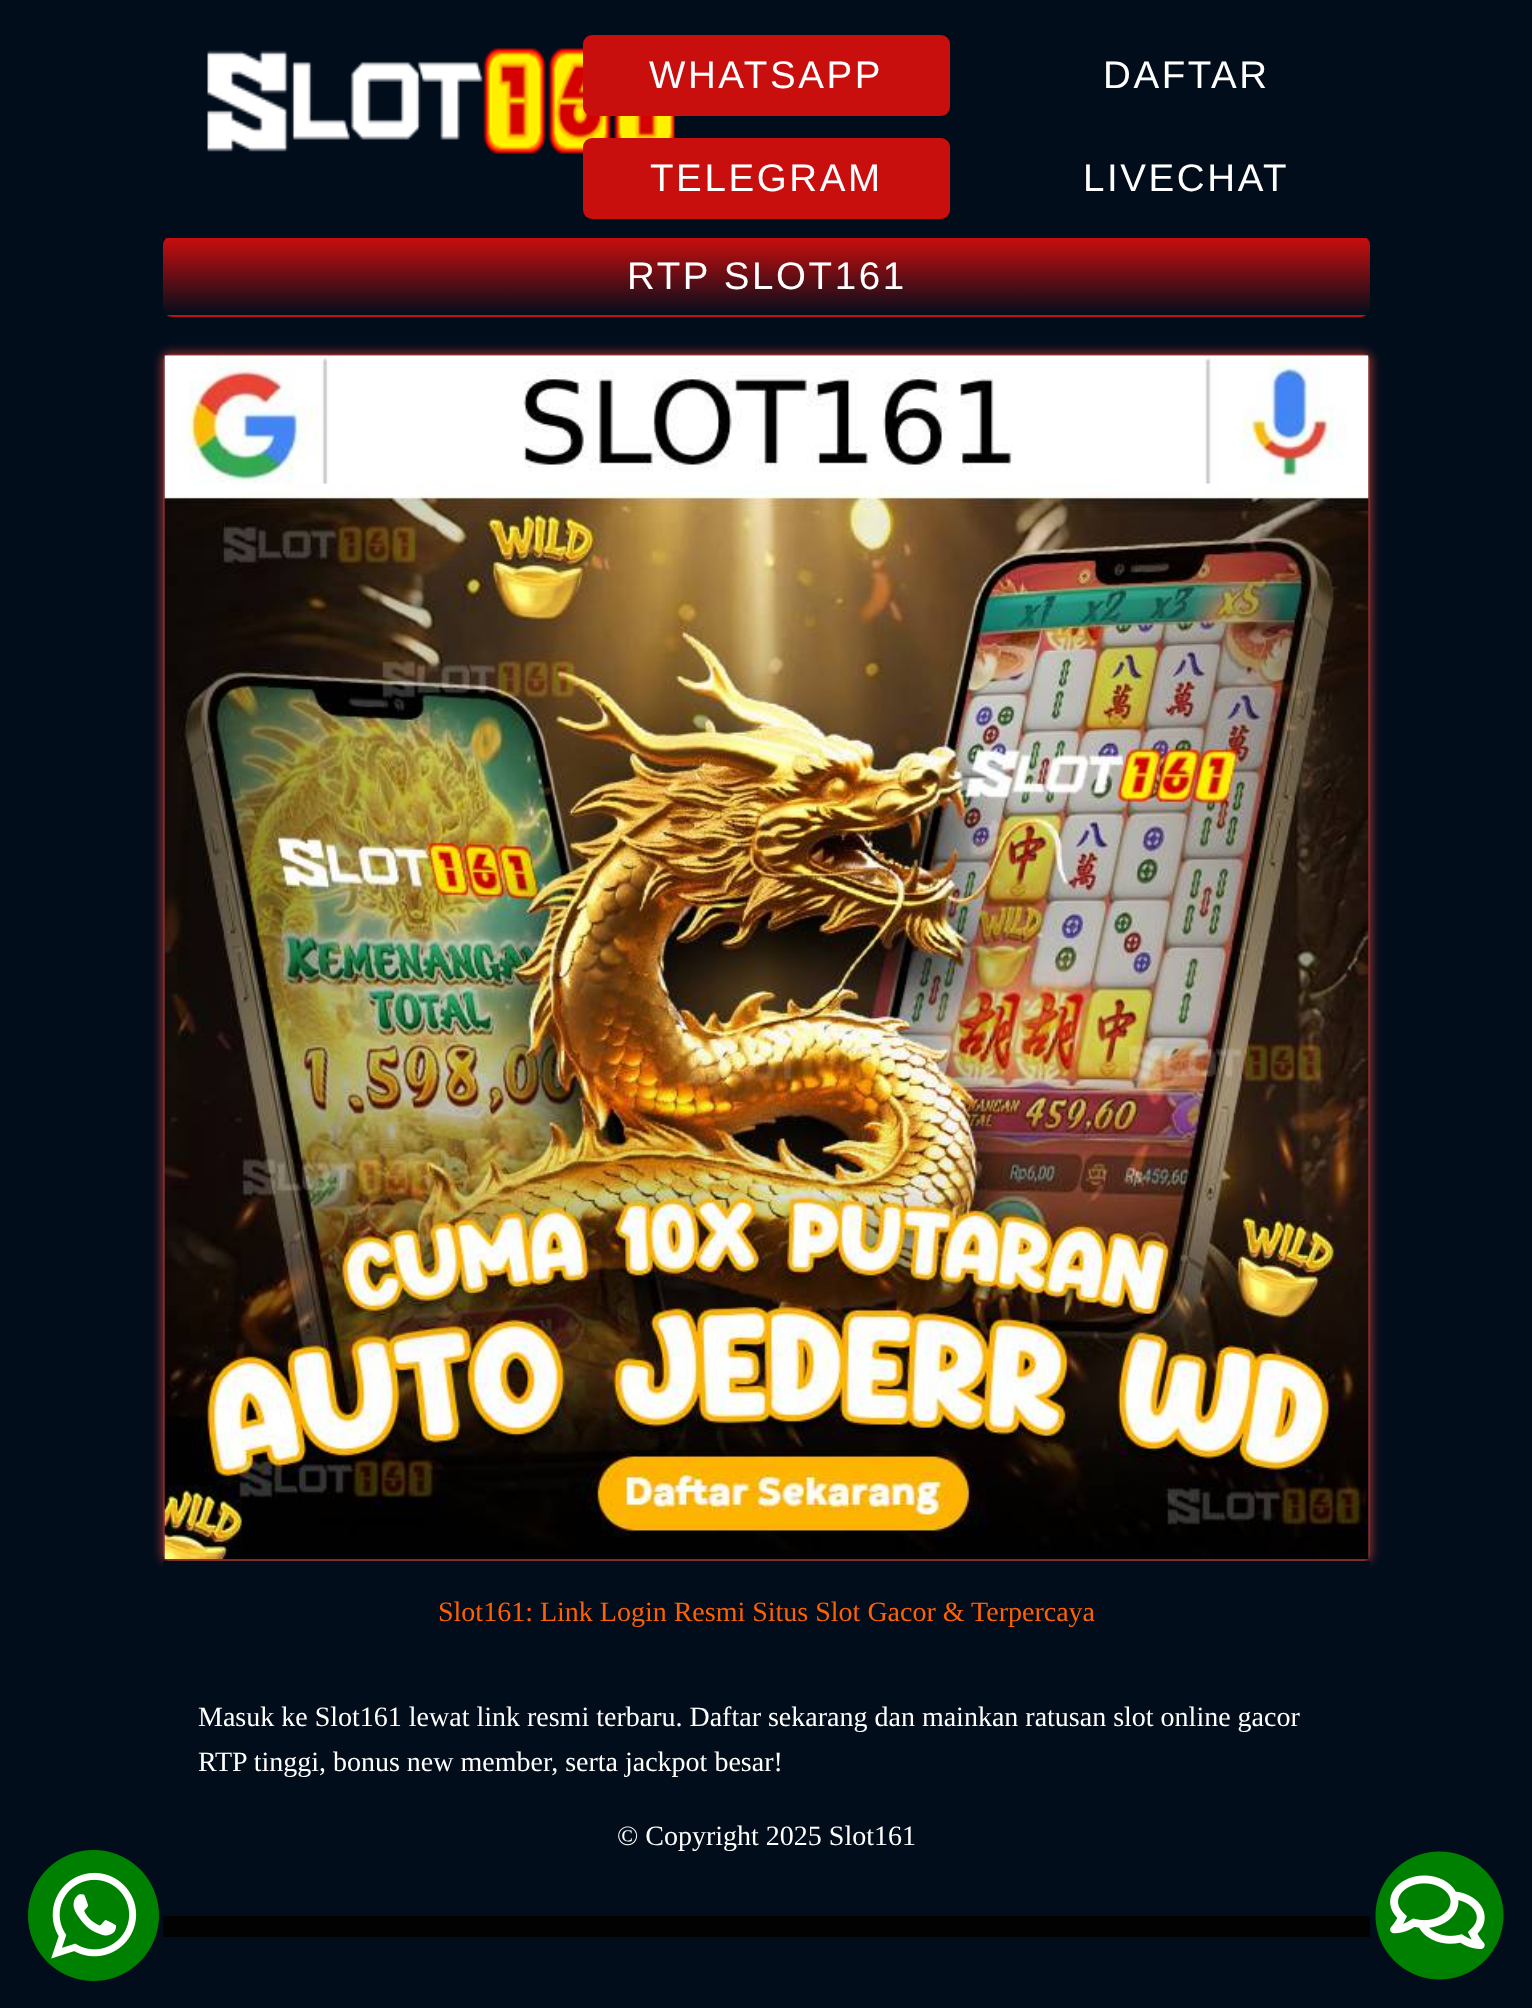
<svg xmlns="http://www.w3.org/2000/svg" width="1532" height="2008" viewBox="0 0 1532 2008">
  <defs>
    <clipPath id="clip1"><rect x="163" y="236" width="1207" height="81" rx="9"/></clipPath>
    <linearGradient id="g1" gradientUnits="userSpaceOnUse" x1="767" y1="161" x2="767" y2="238"><stop offset="0" stop-color="rgb(201,14,14)"/><stop offset="1" stop-color="rgb(2,13,27)"/></linearGradient>
    <linearGradient id="g2" gradientUnits="userSpaceOnUse" x1="767" y1="238" x2="767" y2="315"><stop offset="0" stop-color="rgb(201,14,14)"/><stop offset="1" stop-color="rgb(2,13,27)"/></linearGradient>
    <linearGradient id="g3" gradientUnits="userSpaceOnUse" x1="767" y1="315" x2="767" y2="392"><stop offset="0" stop-color="rgb(201,14,14)"/><stop offset="1" stop-color="rgb(2,13,27)"/></linearGradient>
  </defs>
  <rect width="100%" height="100%" fill="rgb(2,13,27)"/>
  <image x="207" y="48" width="468" height="106" href="pic1.png"/>
  <rect x="583" y="35" width="367" height="81" rx="9" fill="rgb(201,14,14)"/>
  <g font-family="Liberation Sans" font-size="38.5" letter-spacing="2.6" fill="rgb(255,255,255)">
    <text x="649" y="88">WHATSAPP</text>
    <text x="1103" y="88">DAFTAR</text>
  </g>
  <rect x="583" y="138" width="367" height="81" rx="9" fill="rgb(201,14,14)"/>
  <g font-family="Liberation Sans" font-size="38.5" letter-spacing="2.6" fill="rgb(255,255,255)">
    <text x="650" y="191">TELEGRAM</text>
    <text x="1083" y="191">LIVECHAT</text>
  </g>
  <g clip-path="url(#clip1)">
    <rect x="163" y="236" width="1207" height="2" fill="url(#g1)"/>
    <rect x="163" y="238" width="1207" height="77" fill="url(#g2)"/>
    <rect x="163" y="315" width="1207" height="2" fill="url(#g3)"/>
  </g>
  <text x="627" y="289" font-family="Liberation Sans" font-size="38.5" letter-spacing="2.6" fill="rgb(255,255,255)">RTP SLOT161</text>
  <rect x="161" y="352" width="1211" height="1211" rx="9" fill="rgb(131,45,45)" filter="blur(5px)"/>
  <rect x="164" y="355" width="1205" height="1205" rx="6" fill="none" stroke="rgb(131,45,45)" stroke-width="2"/>
  <image x="164" y="355" width="1205" height="1205" href="pic2.png"/>
  <rect x="163" y="1916" width="1207" height="21" fill="rgb(2,2,2)"/>
  <rect x="163" y="1561" width="1207" height="12" fill="rgb(2,13,27)"/>
  <text x="438" y="1621" font-family="Liberation Serif" font-size="28" fill="rgb(255,97,2)">Slot161: Link Login Resmi Situs Slot Gacor &amp; Terpercaya</text>
  <g font-family="Liberation Serif" font-size="28" fill="rgb(255,255,255)">
    <text>
      <tspan x="198" y="1726">Masuk ke Slot161 lewat link resmi terbaru. Daftar sekarang dan mainkan ratusan slot online gacor</tspan>
      <tspan x="198" y="1771">RTP tinggi, bonus new member, serta jackpot besar!</tspan>
    </text>
    <text x="617" y="1845">© Copyright 2025 Slot161</text>
  </g>
  <image x="28" y="1850" width="131" height="131" href="pic3.png"/>
  <image x="1375" y="1851" width="129" height="129" href="pic4.png"/>
</svg>
